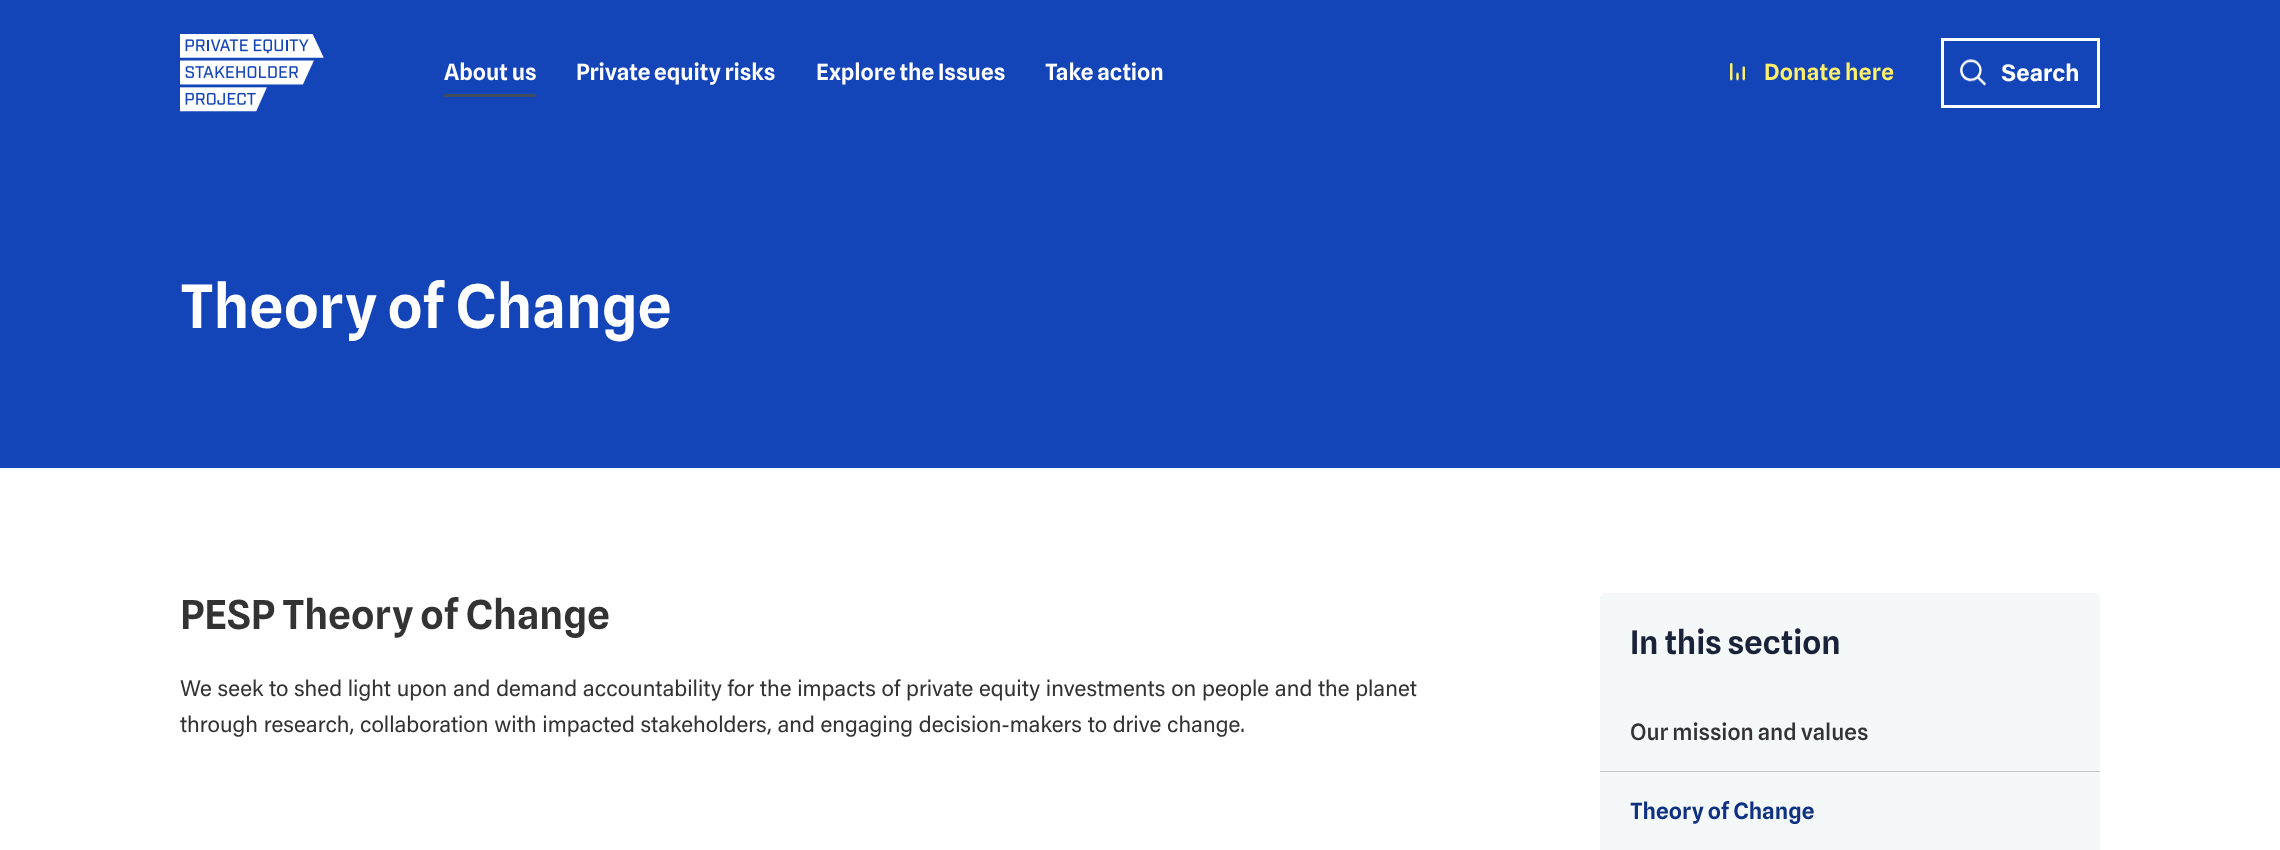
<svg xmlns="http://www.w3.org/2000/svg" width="2280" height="850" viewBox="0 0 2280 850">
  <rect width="100%" height="100%" fill="rgb(255,255,255)"/>
  <rect x="0" y="0" width="2280" height="468" fill="rgb(20,69,184)"/>
  <image x="180" y="34" width="144" height="78" href="pic1.png"/>
  <rect x="444" y="94" width="92" height="3" fill="rgb(66,75,90)"/>
  <g font-family="Spline Sans" font-size="22.5" font-weight="600" fill="rgb(255,255,255)">
    <text x="444" y="80">About us</text>
    <text x="576" y="80">Private equity risks</text>
    <text x="816" y="80">Explore the Issues</text>
    <text x="1045" y="80">Take action</text>
  </g>
  <image x="1730" y="63" width="15" height="18" href="pic2.png"/>
  <text x="1764" y="80" font-family="Spline Sans" font-size="22.5" font-weight="600" letter-spacing="0.25" fill="rgb(255,240,107)">Donate here</text>
  <rect x="1942.5" y="39.5" width="156" height="67" fill="none" stroke="rgb(255,255,255)" stroke-width="3"/>
  <image x="1960" y="59" width="26" height="27" href="pic3.png"/>
  <text x="2001" y="81" font-family="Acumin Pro" font-size="24" font-weight="bold" fill="rgb(255,255,255)">Search</text>
  <text x="180" y="328" font-family="Spline Sans" font-size="60" font-weight="600" fill="rgb(255,255,255)">Theory of Change</text>
  <text x="180" y="629" font-family="Spline Sans" font-size="40" font-weight="600" fill="rgb(51,51,51)">PESP Theory of Change</text>
  <g font-family="Acumin Pro" font-size="22.5" fill="rgb(51,51,51)">
    <text>
      <tspan x="180" y="696">We seek to shed light upon and demand accountability for the impacts of private equity investments on people and the planet</tspan>
      <tspan x="180" y="732">through research, collaboration with impacted stakeholders, and engaging decision-makers to drive change.</tspan>
    </text>
  </g>
  <rect x="1600" y="593" width="500" height="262" rx="5" fill="rgb(244,248,249)"/>
  <text x="1630" y="654" font-family="Spline Sans" font-size="32.5" font-weight="600" fill="rgb(25,34,56)">In this section</text>
  <rect x="1600" y="771" width="500" height="1" fill="rgb(196,196,196)"/>
  <text x="1630" y="740" font-family="Spline Sans" font-size="22.5" font-weight="500" fill="rgb(51,51,51)">Our mission and values</text>
  <text x="1630" y="819" font-family="Spline Sans" font-size="22.5" font-weight="600" fill="rgb(14,49,129)">Theory of Change</text>
</svg>
